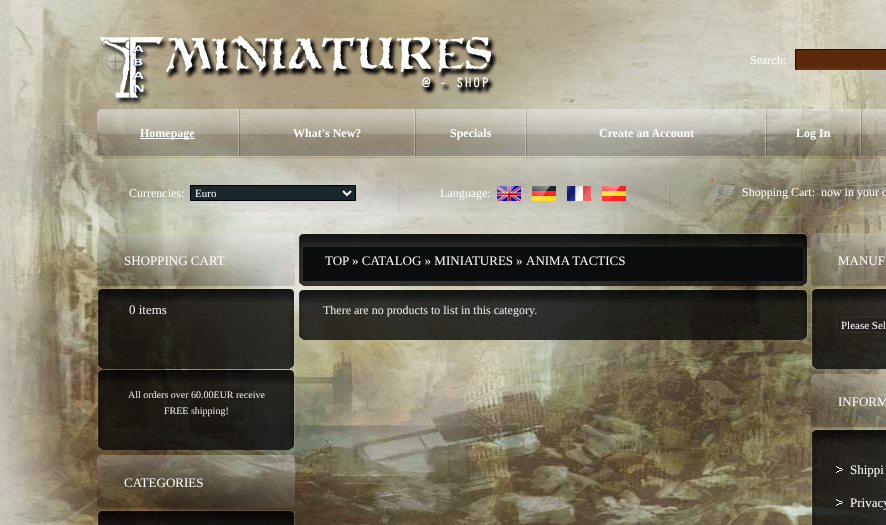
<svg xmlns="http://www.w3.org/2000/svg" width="886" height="525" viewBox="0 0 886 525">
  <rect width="100%" height="100%" fill="rgb(255,255,255)"/>
  <image x="0" y="0" width="886" height="525" href="pic1.png"/>
  <image x="97" y="36" width="401" height="70" href="pic2.png"/>
  <text x="750" y="64" font-family="Liberation Serif" font-size="12" fill="rgb(255,255,255)">Search:</text>
  <image x="798" y="49" width="88" height="21" href="pic3.png"/>
  <image x="795" y="49" width="3" height="21" href="pic4.png"/>
  <image x="97" y="109" width="5" height="49" href="pic5.png"/>
  <image x="102" y="109" width="784" height="49" href="pic6.png"/>
  <rect x="140" y="138" width="55" height="1" fill="rgb(255,255,255)"/>
  <text x="140" y="137" font-family="Liberation Serif" font-size="12" font-weight="bold" fill="rgb(255,255,255)">Homepage</text>
  <image x="238" y="109" width="2" height="48" href="pic7.png"/>
  <text x="293" y="137" font-family="Liberation Serif" font-size="12" font-weight="bold" fill="rgb(255,255,255)">What's New?</text>
  <image x="414" y="109" width="2" height="48" href="pic8.png"/>
  <text x="450" y="137" font-family="Liberation Serif" font-size="12" font-weight="bold" fill="rgb(255,255,255)">Specials</text>
  <image x="525" y="109" width="2" height="48" href="pic9.png"/>
  <text x="599" y="137" font-family="Liberation Serif" font-size="12" font-weight="bold" fill="rgb(255,255,255)">Create an Account</text>
  <image x="765" y="109" width="2" height="48" href="pic10.png"/>
  <text x="796" y="137" font-family="Liberation Serif" font-size="12" font-weight="bold" fill="rgb(255,255,255)">Log In</text>
  <image x="860" y="109" width="2" height="48" href="pic11.png"/>
  <image x="97" y="159" width="5" height="54" href="pic12.png"/>
  <image x="102" y="159" width="784" height="53" href="pic13.png"/>
  <text x="129" y="197" font-family="Liberation Serif" font-size="12" fill="rgb(255,255,255)">Currencies:</text>
  <rect x="190.5" y="185.5" width="165" height="15" fill="rgb(25,39,44)" stroke="rgb(0,0,0)"/>
  <path d="M343 191L347 195L351 191" fill="none" stroke="rgb(255,255,255)" stroke-width="2"/>
  <text x="195" y="197" font-family="Liberation Serif" font-size="11" fill="rgb(255,255,255)">Euro</text>
  <image x="397" y="177" width="2" height="37" href="pic14.png"/>
  <text x="440" y="197" font-family="Liberation Serif" font-size="12" fill="rgb(255,255,255)">Language:</text>
  <image x="497" y="186" width="24" height="15" href="pic15.png"/>
  <image x="532" y="186" width="24" height="15" href="pic16.png"/>
  <image x="567" y="186" width="24" height="15" href="pic17.png"/>
  <image x="602" y="186" width="24" height="15" href="pic18.png"/>
  <image x="668" y="177" width="2" height="37" href="pic19.png"/>
  <image x="711" y="180" width="24" height="22" href="pic20.png"/>
  <g font-family="Liberation Serif" font-size="12" fill="rgb(255,255,255)">
    <text x="742" y="196">Shopping Cart:</text>
    <text x="821" y="196">now in your c</text>
  </g>
  <image x="97" y="233" width="5" height="5" href="pic21.png"/>
  <image x="290" y="233" width="5" height="5" href="pic22.png"/>
  <image x="102" y="233" width="188" height="5" href="pic23.png"/>
  <image x="97" y="238" width="5" height="43" href="pic24.png"/>
  <image x="290" y="238" width="5" height="43" href="pic25.png"/>
  <image x="102" y="238" width="188" height="43" href="pic26.png"/>
  <text x="124" y="265" font-family="Liberation Serif" font-size="13" fill="rgb(255,255,255)">SHOPPING CART</text>
  <image x="97" y="281" width="5" height="5" href="pic27.png"/>
  <image x="290" y="281" width="5" height="5" href="pic28.png"/>
  <image x="102" y="281" width="188" height="5" href="pic29.png"/>
  <image x="97" y="288" width="5" height="14" href="pic30.png"/>
  <image x="290" y="288" width="5" height="14" href="pic31.png"/>
  <image x="102" y="288" width="188" height="14" href="pic32.png"/>
  <image x="97" y="302" width="5" height="62" href="pic33.png"/>
  <image x="290" y="302" width="5" height="62" href="pic34.png"/>
  <rect x="102" y="302" width="188" height="62" fill="rgba(12,12,12,0.82)"/>
  <text x="129" y="314" font-family="Liberation Serif" font-size="13" fill="rgb(237,237,237)">0 items</text>
  <image x="97" y="364" width="5" height="5" href="pic35.png"/>
  <image x="290" y="364" width="5" height="5" href="pic36.png"/>
  <rect x="102" y="364" width="188" height="5" fill="rgba(12,12,12,0.82)"/>
  <image x="97" y="369" width="5" height="14" href="pic37.png"/>
  <image x="290" y="369" width="5" height="14" href="pic38.png"/>
  <image x="102" y="369" width="188" height="14" href="pic39.png"/>
  <image x="97" y="383" width="5" height="62" href="pic40.png"/>
  <image x="290" y="383" width="5" height="62" href="pic41.png"/>
  <rect x="102" y="383" width="188" height="62" fill="rgba(12,12,12,0.82)"/>
  <g font-family="Liberation Serif" font-size="10" fill="rgb(237,237,237)">
    <text x="128" y="398">All orders over 60.00EUR receive</text>
    <text x="164" y="414">FREE shipping!</text>
  </g>
  <image x="97" y="445" width="5" height="5" href="pic42.png"/>
  <image x="290" y="445" width="5" height="5" href="pic43.png"/>
  <rect x="102" y="445" width="188" height="5" fill="rgba(12,12,12,0.82)"/>
  <image x="97" y="455" width="5" height="5" href="pic44.png"/>
  <image x="290" y="455" width="5" height="5" href="pic45.png"/>
  <image x="102" y="455" width="188" height="5" href="pic46.png"/>
  <image x="97" y="460" width="5" height="43" href="pic47.png"/>
  <image x="290" y="460" width="5" height="43" href="pic48.png"/>
  <image x="102" y="460" width="188" height="43" href="pic49.png"/>
  <text x="124" y="487" font-family="Liberation Serif" font-size="13" fill="rgb(255,255,255)">CATEGORIES</text>
  <image x="97" y="503" width="5" height="5" href="pic50.png"/>
  <image x="290" y="503" width="5" height="5" href="pic51.png"/>
  <image x="102" y="503" width="188" height="5" href="pic52.png"/>
  <image x="97" y="510" width="5" height="14" href="pic53.png"/>
  <image x="290" y="510" width="5" height="14" href="pic54.png"/>
  <image x="102" y="510" width="188" height="14" href="pic55.png"/>
  <image x="97" y="524" width="5" height="1" href="pic56.png"/>
  <image x="290" y="524" width="5" height="1" href="pic57.png"/>
  <rect x="102" y="524" width="188" height="1" fill="rgba(12,12,12,0.82)"/>
  <image x="298" y="233" width="5" height="14" href="pic58.png"/>
  <image x="803" y="233" width="5" height="14" href="pic59.png"/>
  <image x="303" y="233" width="500" height="14" href="pic60.png"/>
  <image x="298" y="247" width="5" height="34" href="pic61.png"/>
  <image x="803" y="247" width="5" height="34" href="pic62.png"/>
  <rect x="303" y="247" width="500" height="34" fill="rgb(11,12,13)"/>
  <g font-family="Liberation Serif" font-size="13" fill="rgb(255,255,255)">
    <text x="325" y="265">TOP</text>
    <text x="352" y="265">» CATALOG » MINIATURES</text>
    <text x="516" y="265">»</text>
    <text x="526" y="265">ANIMA TACTICS</text>
  </g>
  <image x="298" y="281" width="5" height="5" href="pic63.png"/>
  <image x="803" y="281" width="5" height="5" href="pic64.png"/>
  <rect x="303" y="281" width="500" height="5" fill="rgba(12,12,12,0.82)"/>
  <image x="298" y="289" width="5" height="14" href="pic65.png"/>
  <image x="803" y="289" width="5" height="14" href="pic66.png"/>
  <image x="303" y="289" width="500" height="14" href="pic67.png"/>
  <image x="298" y="303" width="5" height="32" href="pic68.png"/>
  <image x="803" y="303" width="5" height="32" href="pic69.png"/>
  <rect x="303" y="303" width="500" height="32" fill="rgba(12,12,12,0.82)"/>
  <text x="323" y="314" font-family="Liberation Serif" font-size="12" fill="rgb(237,237,237)">There are no products to list in this category.</text>
  <image x="298" y="335" width="5" height="5" href="pic70.png"/>
  <image x="803" y="335" width="5" height="5" href="pic71.png"/>
  <rect x="303" y="335" width="500" height="5" fill="rgba(12,12,12,0.82)"/>
  <image x="811" y="233" width="5" height="5" href="pic72.png"/>
  <image x="816" y="233" width="70" height="5" href="pic73.png"/>
  <image x="811" y="238" width="5" height="43" href="pic74.png"/>
  <image x="816" y="238" width="70" height="43" href="pic75.png"/>
  <text x="838" y="265" font-family="Liberation Serif" font-size="13" fill="rgb(255,255,255)">MANUF</text>
  <image x="811" y="281" width="5" height="5" href="pic76.png"/>
  <image x="816" y="281" width="70" height="5" href="pic77.png"/>
  <image x="811" y="288" width="5" height="14" href="pic78.png"/>
  <image x="816" y="288" width="70" height="14" href="pic79.png"/>
  <image x="811" y="302" width="5" height="62" href="pic80.png"/>
  <rect x="816" y="302" width="70" height="62" fill="rgba(12,12,12,0.82)"/>
  <rect x="836.5" y="317.5" width="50" height="15" fill="rgb(37,33,31)" stroke="rgb(52,48,46)"/>
  <text x="841" y="329" font-family="Liberation Serif" font-size="11" fill="rgb(255,255,255)">Please Sel</text>
  <image x="811" y="364" width="5" height="5" href="pic81.png"/>
  <rect x="816" y="364" width="70" height="5" fill="rgba(12,12,12,0.82)"/>
  <image x="811" y="374" width="5" height="5" href="pic82.png"/>
  <image x="816" y="374" width="70" height="5" href="pic83.png"/>
  <image x="811" y="379" width="5" height="43" href="pic84.png"/>
  <image x="816" y="379" width="70" height="43" href="pic85.png"/>
  <text x="838" y="406" font-family="Liberation Serif" font-size="13" fill="rgb(255,255,255)">INFORM</text>
  <image x="811" y="422" width="5" height="5" href="pic86.png"/>
  <image x="816" y="422" width="70" height="5" href="pic87.png"/>
  <image x="811" y="429" width="5" height="14" href="pic88.png"/>
  <image x="816" y="429" width="70" height="14" href="pic89.png"/>
  <image x="811" y="443" width="5" height="82" href="pic90.png"/>
  <rect x="816" y="443" width="70" height="82" fill="rgba(12,12,12,0.82)"/>
  <image x="836" y="466" width="7" height="7" href="pic91.png"/>
  <text x="850" y="474" font-family="Liberation Serif" font-size="13" fill="rgb(255,255,255)">Shippi</text>
  <image x="836" y="499" width="7" height="7" href="pic92.png"/>
  <text x="850" y="507" font-family="Liberation Serif" font-size="13" fill="rgb(255,255,255)">Privacy</text>
</svg>
